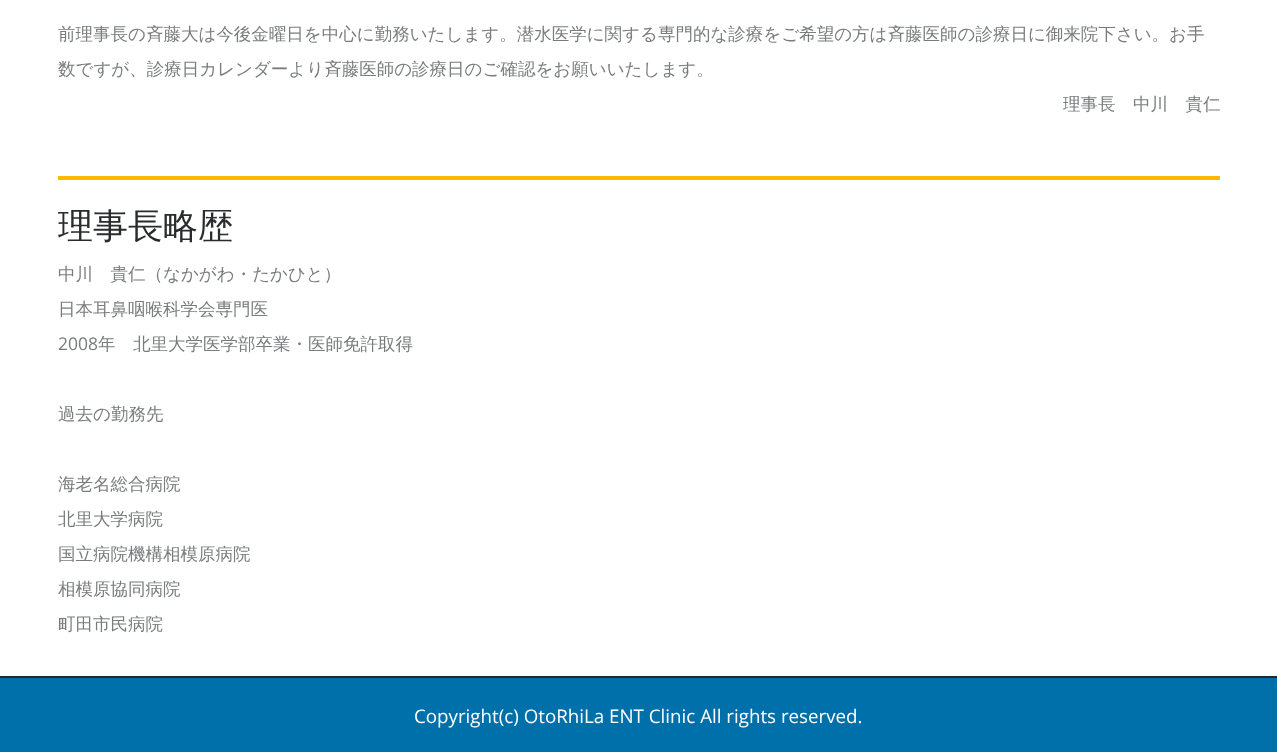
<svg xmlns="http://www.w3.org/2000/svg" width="1277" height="752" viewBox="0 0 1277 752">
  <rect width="100%" height="100%" fill="rgb(255,255,255)"/>
  <g font-family="WenQuanYi Zen Hei" font-size="17.5" font-weight="500" fill="rgb(121,124,125)">
    <text x="58" y="40">前理事長の斉藤大は今後金曜日を中心に勤務いたします。潜水医学に関する専門的な診療をご希望の方は斉藤医師の診療日に御来院下さい。お手</text>
    <text x="58" y="75">数ですが、診療日カレンダーより斉藤医師の診療日のご確認をお願いいたします。</text>
    <text x="1063" y="110">理事長　中川　貴仁</text>
  </g>
  <rect x="58" y="176" width="1162" height="4" fill="rgb(252,185,0)"/>
  <text x="58" y="238" font-family="WenQuanYi Zen Hei" font-size="35" font-weight="500" fill="rgb(41,43,44)">理事長略歴</text>
  <g font-family="WenQuanYi Zen Hei" font-size="17.5" font-weight="500" fill="rgb(121,124,125)">
    <text x="58" y="280">中川　貴仁（なかがわ・たかひと）</text>
    <text x="58" y="315">日本耳鼻咽喉科学会専門医</text>
  </g>
  <text x="58" y="350" font-family="Open Sans" font-size="17.5" fill="rgb(121,124,125)">2008</text>
  <g font-family="WenQuanYi Zen Hei" font-size="17.5" font-weight="500" fill="rgb(121,124,125)">
    <text x="98" y="350">年　北里大学医学部卒業・医師免許取得</text>
    <text x="58" y="420">過去の勤務先</text>
    <text x="58" y="490">海老名総合病院</text>
    <text x="58" y="525">北里大学病院</text>
    <text x="58" y="560">国立病院機構相模原病院</text>
    <text x="58" y="595">相模原協同病院</text>
    <text x="58" y="630">町田市民病院</text>
  </g>
  <rect x="0" y="676" width="1277" height="2" fill="rgb(36,39,46)"/>
  <rect x="0" y="678" width="1277" height="74" fill="rgb(0,112,170)"/>
  <text x="414" y="723" font-family="Open Sans" font-size="18.75" fill="rgb(255,255,255)">Copyright(c) OtoRhiLa ENT Clinic All rights reserved.</text>
</svg>
